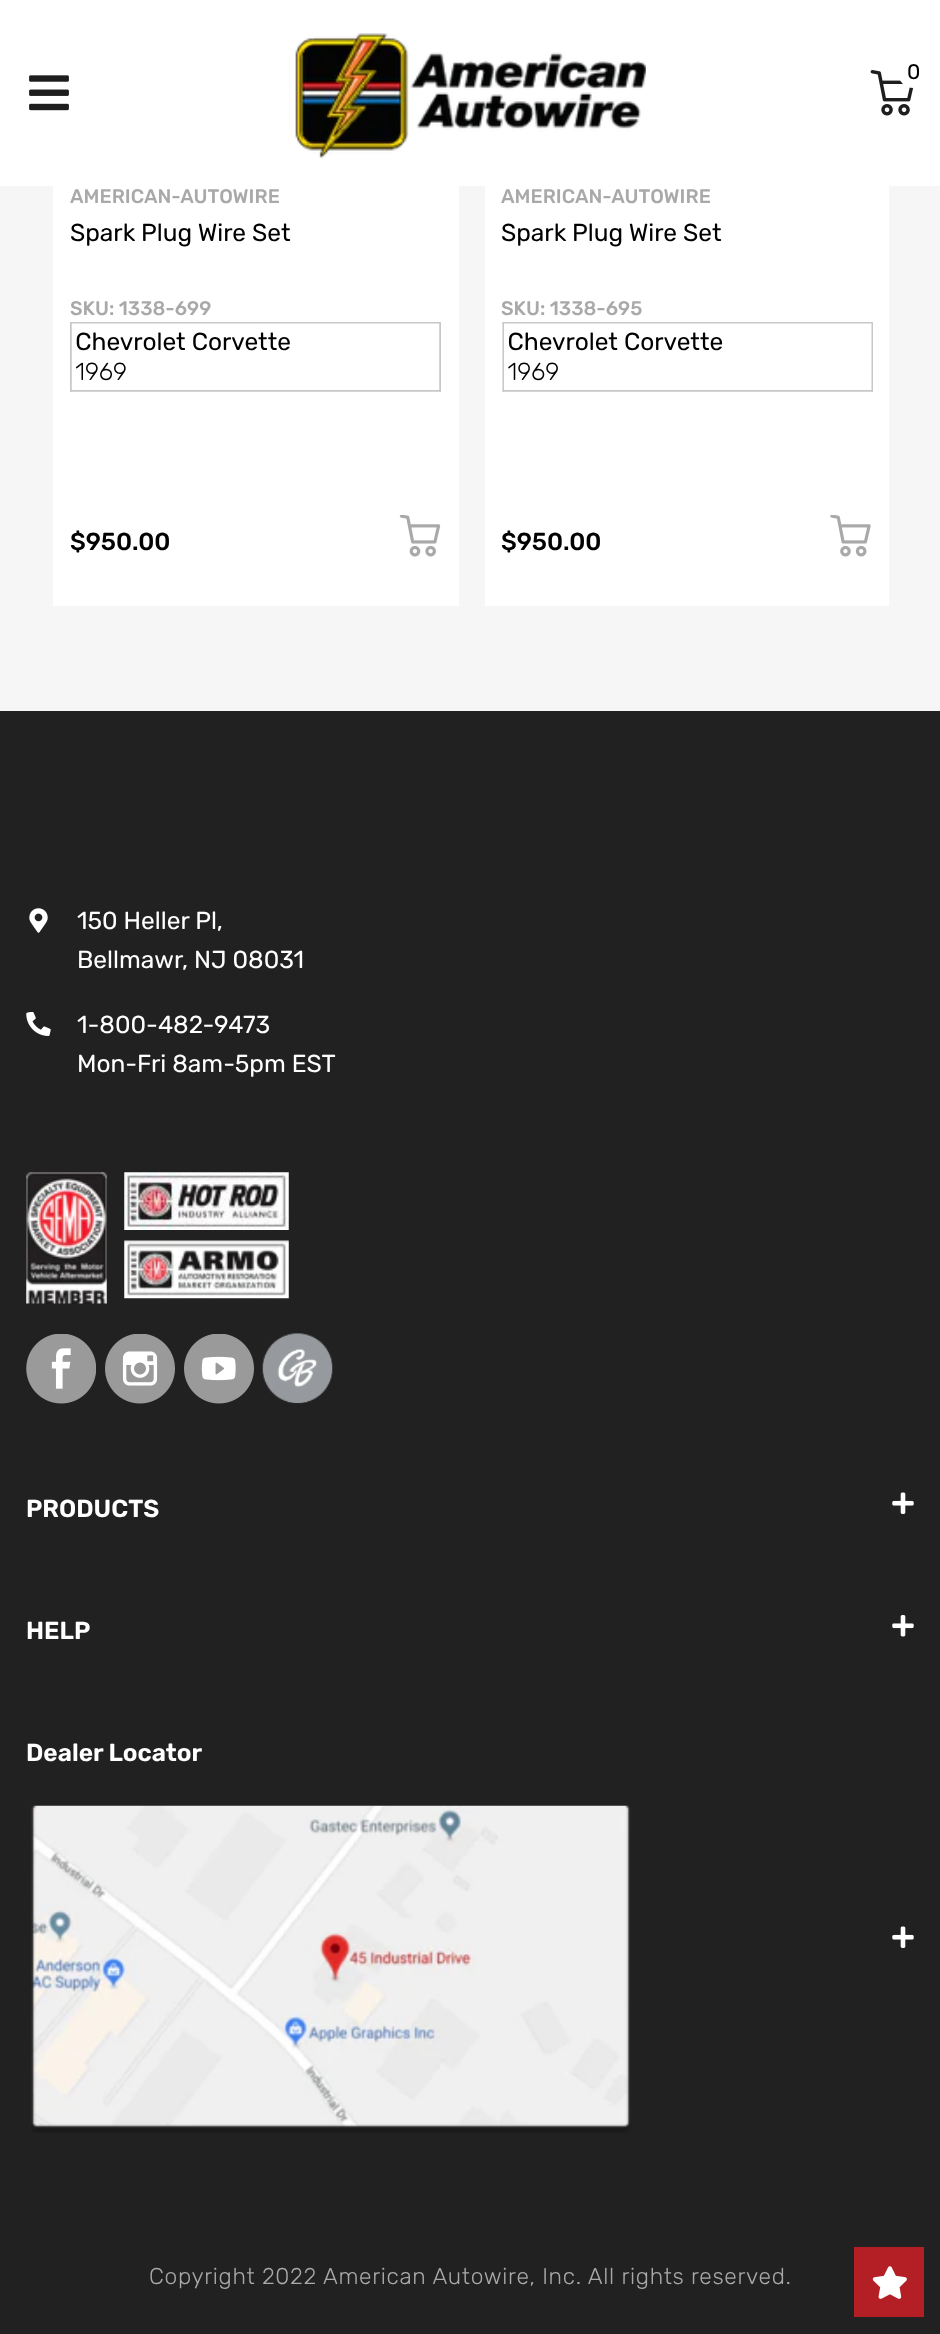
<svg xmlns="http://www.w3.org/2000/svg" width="940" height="2334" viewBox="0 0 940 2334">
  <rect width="100%" height="100%" fill="rgb(246,246,246)"/>
  <rect x="0" y="0" width="940" height="186" fill="rgb(255,255,255)"/>
  <image x="295" y="33" width="351" height="125" href="pic1.png"/>
  <image x="870" y="70" width="44" height="46" href="pic2.png"/>
  <rect x="898" y="56" width="31" height="32" rx="15.5" fill="rgb(255,255,255)"/>
  <text x="907" y="79" font-family="Rubik" font-size="21" fill="rgb(0,0,0)">0</text>
  <image x="29" y="75" width="40" height="36" href="pic3.png"/>
  <rect x="53" y="186" width="406" height="420" fill="rgb(255,255,255)"/>
  <text x="70" y="203" font-family="Rubik" font-size="19.6" font-weight="500" fill="rgb(169,169,169)">AMERICAN-AUTOWIRE</text>
  <text x="70" y="241" font-family="Rubik" font-size="24.5" fill="rgb(0,0,0)">Spark Plug Wire Set</text>
  <text x="70" y="315" font-family="Rubik" font-size="19.6" font-weight="500" fill="rgb(169,169,169)">SKU: 1338-699</text>
  <image x="70" y="322" width="371" height="70" href="pic4.png"/>
  <text x="70" y="550" font-family="Rubik" font-size="24.5" font-weight="500" fill="rgb(0,0,0)">$950.00</text>
  <image x="399" y="515" width="42" height="42" href="pic5.png"/>
  <rect x="485" y="186" width="404" height="420" fill="rgb(255,255,255)"/>
  <text x="501" y="203" font-family="Rubik" font-size="19.6" font-weight="500" fill="rgb(169,169,169)">AMERICAN-AUTOWIRE</text>
  <text x="501" y="241" font-family="Rubik" font-size="24.5" fill="rgb(0,0,0)">Spark Plug Wire Set</text>
  <text x="501" y="315" font-family="Rubik" font-size="19.6" font-weight="500" fill="rgb(169,169,169)">SKU: 1338-695</text>
  <image x="502" y="322" width="371" height="70" href="pic6.png"/>
  <text x="501" y="550" font-family="Rubik" font-size="24.5" font-weight="500" fill="rgb(0,0,0)">$950.00</text>
  <image x="830" y="515" width="41" height="42" href="pic7.png"/>
  <rect x="0" y="711" width="940" height="1623" fill="rgb(33,33,33)"/>
  <image x="29" y="908" width="19" height="25" href="pic8.png"/>
  <g font-family="Rubik" font-size="24.5" fill="rgb(255,255,255)">
    <text>
      <tspan x="77" y="929">150 Heller Pl,</tspan>
      <tspan x="77" y="968">Bellmawr, NJ 08031</tspan>
    </text>
  </g>
  <image x="26" y="1012" width="25" height="24" href="pic9.png"/>
  <g font-family="Rubik" font-size="24.5" fill="rgb(255,255,255)">
    <text>
      <tspan x="77" y="1033">1-800-482-9473</tspan>
      <tspan x="77" y="1072">Mon-Fri 8am-5pm EST</tspan>
    </text>
  </g>
  <image x="26" y="1172" width="81" height="132" href="pic10.png"/>
  <image x="124" y="1172" width="165" height="58" href="pic11.png"/>
  <image x="124" y="1240" width="165" height="59" href="pic12.png"/>
  <image x="26" y="1334" width="70" height="70" href="pic13.png"/>
  <image x="105" y="1334" width="70" height="70" href="pic14.png"/>
  <image x="184" y="1334" width="70" height="70" href="pic15.png"/>
  <image x="262" y="1333" width="71" height="71" href="pic16.png"/>
  <text x="26" y="1517" font-family="Rubik" font-size="24.5" font-weight="600" fill="rgb(255,255,255)">PRODUCTS</text>
  <image x="892" y="1492" width="22" height="22" href="pic17.png"/>
  <text x="26" y="1639" font-family="Rubik" font-size="24.5" font-weight="600" fill="rgb(255,255,255)">HELP</text>
  <image x="892" y="1615" width="22" height="22" href="pic18.png"/>
  <text x="26" y="1761" font-family="Rubik" font-size="24.5" font-weight="600" fill="rgb(255,255,255)">Dealer Locator</text>
  <image x="31" y="1805" width="600" height="328" href="pic19.png"/>
  <image x="892" y="1926" width="22" height="22" href="pic17.png"/>
  <text x="149" y="2284" font-family="Rubik" font-size="22.75" font-weight="300" letter-spacing="0.7" fill="rgb(169,169,169)">Copyright 2022 American Autowire, Inc. All rights reserved.</text>
  <rect x="854" y="2247" width="70" height="70" fill="rgb(179,31,36)"/>
  <image x="872" y="2266" width="35" height="33" href="pic20.png"/>
</svg>
